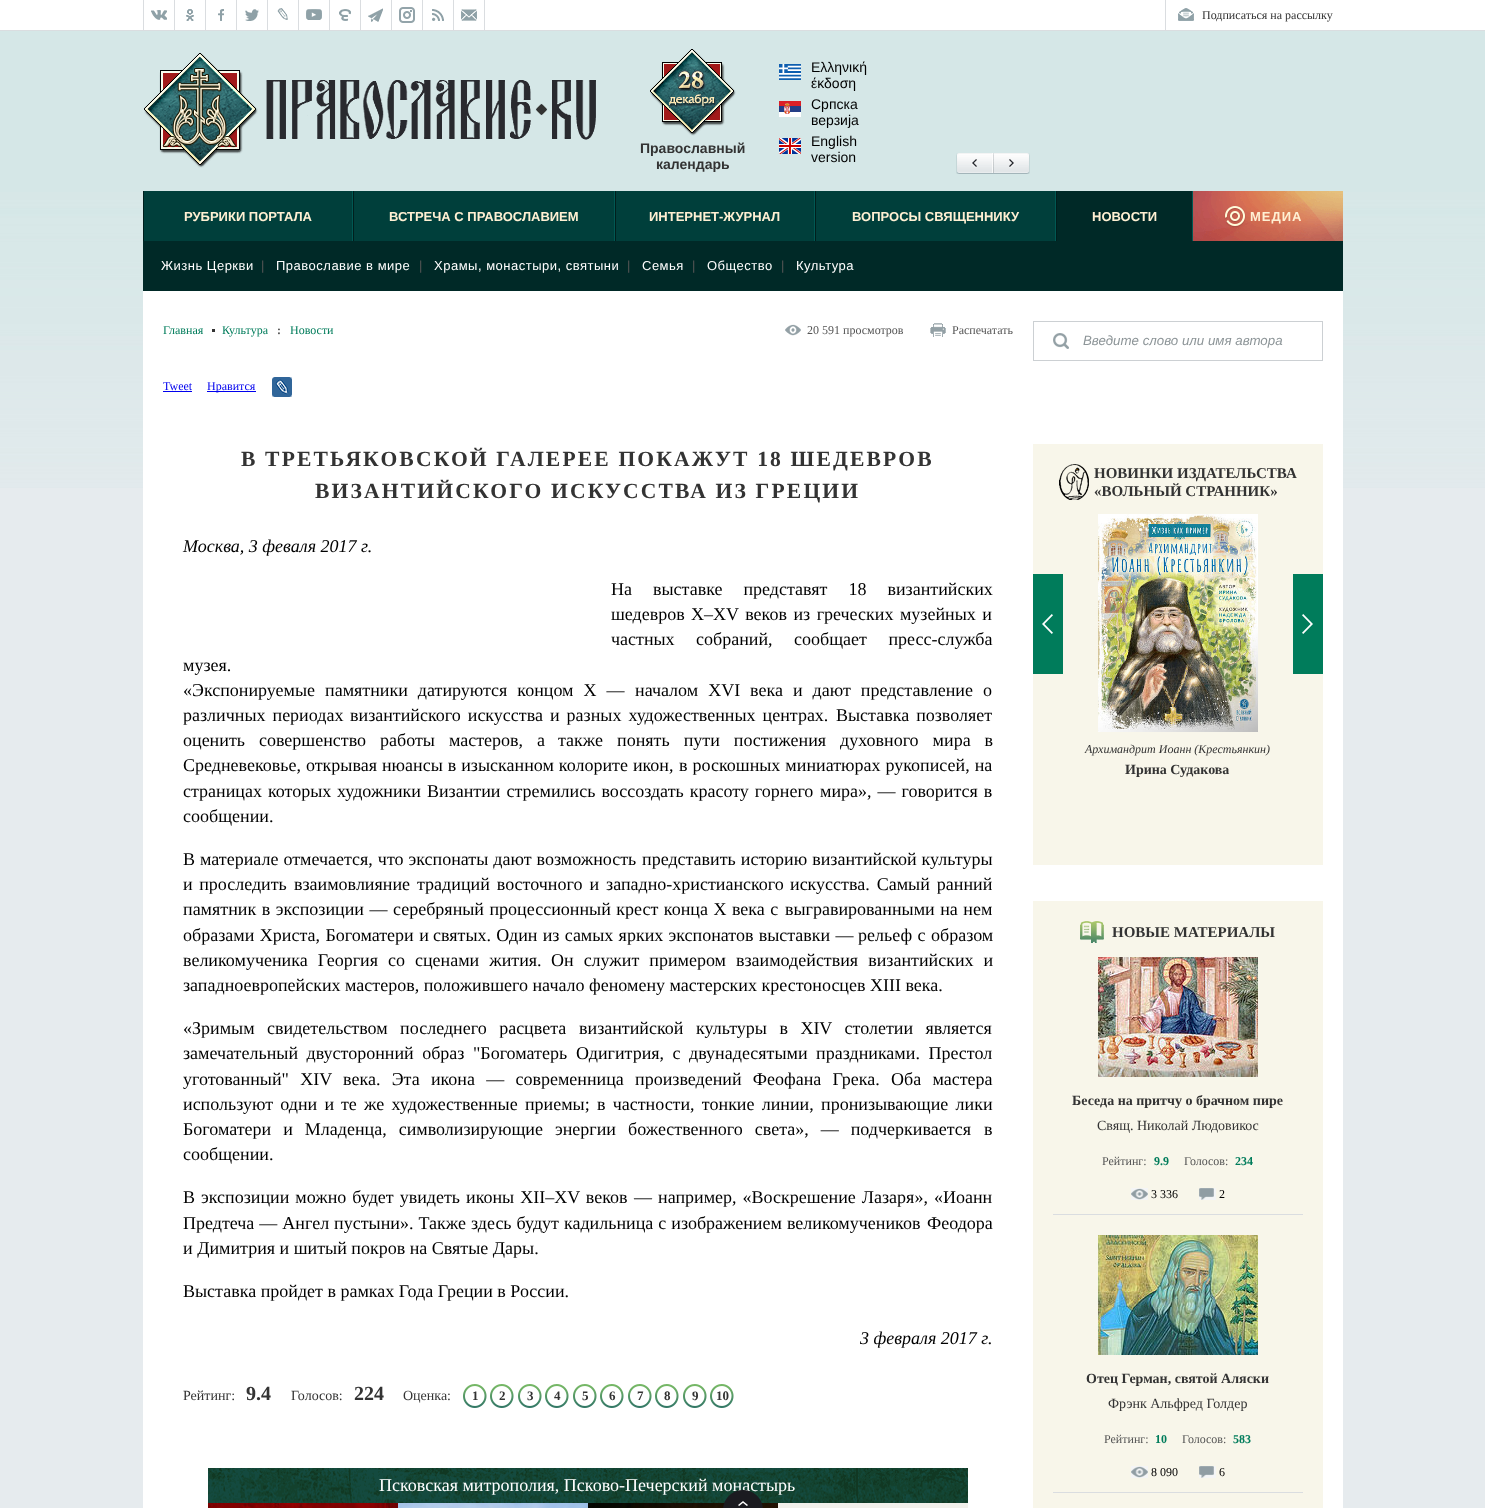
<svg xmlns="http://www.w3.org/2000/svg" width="1485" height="1508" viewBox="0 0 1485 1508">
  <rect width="100%" height="100%" fill="rgb(230,235,238)"/>
  <image x="0" y="31" width="1485" height="457" href="pic1.png"/>
  <rect x="0" y="0" width="1485" height="30" fill="rgb(255,255,255)"/>
  <rect x="0" y="30" width="1485" height="1" fill="rgb(218,221,224)"/>
  <image x="151" y="10" width="16" height="10" href="pic2.png"/>
  <rect x="174" y="0" width="1" height="30" fill="rgb(218,221,224)"/>
  <rect x="143" y="0" width="1" height="30" fill="rgb(218,221,224)"/>
  <image x="186" y="9" width="8" height="12" href="pic3.png"/>
  <rect x="205" y="0" width="1" height="30" fill="rgb(218,221,224)"/>
  <image x="218" y="9" width="6" height="12" href="pic4.png"/>
  <rect x="236" y="0" width="1" height="30" fill="rgb(218,221,224)"/>
  <image x="245" y="9" width="14" height="12" href="pic5.png"/>
  <rect x="267" y="0" width="1" height="30" fill="rgb(218,221,224)"/>
  <image x="277" y="8" width="11" height="12" href="pic6.png"/>
  <rect x="298" y="0" width="1" height="30" fill="rgb(218,221,224)"/>
  <image x="306" y="9" width="16" height="11" href="pic7.png"/>
  <rect x="329" y="0" width="1" height="30" fill="rgb(218,221,224)"/>
  <image x="339" y="9" width="12" height="12" href="pic8.png"/>
  <rect x="360" y="0" width="1" height="30" fill="rgb(218,221,224)"/>
  <image x="368" y="8" width="15" height="14" href="pic9.png"/>
  <rect x="391" y="0" width="1" height="30" fill="rgb(218,221,224)"/>
  <image x="399" y="7" width="16" height="16" href="pic10.png"/>
  <rect x="422" y="0" width="1" height="30" fill="rgb(218,221,224)"/>
  <image x="432" y="9" width="12" height="12" href="pic11.png"/>
  <rect x="453" y="0" width="1" height="30" fill="rgb(218,221,224)"/>
  <image x="461" y="9" width="16" height="12" href="pic12.png"/>
  <rect x="484" y="0" width="1" height="30" fill="rgb(218,221,224)"/>
  <image x="1178" y="8" width="16" height="13" href="pic13.png"/>
  <rect x="1165" y="0" width="1" height="30" fill="rgb(218,221,224)"/>
  <text x="1202" y="19" font-family="Liberation Serif" font-size="12" fill="rgb(51,51,51)">Подписаться на рассылку</text>
  <image x="144" y="53" width="452" height="115" href="pic14.png"/>
  <image x="650" y="49" width="86" height="87" href="pic15.png"/>
  <image x="678" y="69" width="28" height="22" href="pic16.png"/>
  <image x="669" y="94" width="48" height="15" href="pic17.png"/>
  <g font-family="Liberation Sans" font-size="14" font-weight="bold" fill="rgb(51,51,51)">
    <text x="640" y="153">Православный</text>
    <text x="656" y="169">календарь</text>
  </g>
  <image x="779" y="64" width="22" height="16" href="pic18.png"/>
  <g font-family="Liberation Sans" font-size="14" fill="rgb(0,0,0)">
    <text>
      <tspan x="811" y="72">Ελληνική</tspan>
      <tspan x="811" y="88">έκδοση</tspan>
    </text>
  </g>
  <image x="779" y="101" width="22" height="16" href="pic19.png"/>
  <g font-family="Liberation Sans" font-size="14" fill="rgb(0,0,0)">
    <text>
      <tspan x="811" y="109">Српска</tspan>
      <tspan x="811" y="125">верзиjа</tspan>
    </text>
  </g>
  <image x="779" y="138" width="22" height="16" href="pic20.png"/>
  <g font-family="Liberation Sans" font-size="14" fill="rgb(0,0,0)">
    <text>
      <tspan x="811" y="146">English</tspan>
      <tspan x="811" y="162">version</tspan>
    </text>
  </g>
  <image x="956" y="153" width="37" height="21" href="pic21.png"/>
  <image x="993" y="153" width="37" height="21" href="pic22.png"/>
  <rect x="143" y="291" width="1200" height="1217" fill="rgb(255,255,255)"/>
  <rect x="144" y="191" width="911" height="50" fill="rgb(0,63,59)"/>
  <rect x="1057" y="191" width="135" height="50" fill="rgb(0,41,39)"/>
  <rect x="1192" y="191" width="1" height="50" fill="rgb(0,88,83)"/>
  <rect x="1056" y="191" width="1" height="50" fill="rgb(0,31,29)"/>
  <text x="1092" y="221" font-family="Liberation Sans" font-size="13" font-weight="bold" fill="rgb(255,240,211)">НОВОСТИ</text>
  <rect x="143" y="241" width="1200" height="50" fill="rgb(0,41,39)"/>
  <text x="161" y="270" font-family="Liberation Sans" font-size="13" letter-spacing="0.5" fill="rgb(255,255,255)">Жизнь Церкви</text>
  <text x="261" y="270" font-family="Liberation Sans" font-size="13" letter-spacing="0.5" fill="rgb(85,85,85)">|</text>
  <text x="276" y="270" font-family="Liberation Sans" font-size="13" letter-spacing="0.5" fill="rgb(255,255,255)">Православие в мире</text>
  <text x="419" y="270" font-family="Liberation Sans" font-size="13" letter-spacing="0.5" fill="rgb(85,85,85)">|</text>
  <text x="434" y="270" font-family="Liberation Sans" font-size="13" letter-spacing="0.5" fill="rgb(255,255,255)">Храмы, монастыри, святыни</text>
  <text x="627" y="270" font-family="Liberation Sans" font-size="13" letter-spacing="0.5" fill="rgb(85,85,85)">|</text>
  <text x="642" y="270" font-family="Liberation Sans" font-size="13" letter-spacing="0.5" fill="rgb(255,255,255)">Семья</text>
  <text x="692" y="270" font-family="Liberation Sans" font-size="13" letter-spacing="0.5" fill="rgb(85,85,85)">|</text>
  <text x="707" y="270" font-family="Liberation Sans" font-size="13" letter-spacing="0.5" fill="rgb(255,255,255)">Общество</text>
  <text x="781" y="270" font-family="Liberation Sans" font-size="13" letter-spacing="0.5" fill="rgb(85,85,85)">|</text>
  <text x="796" y="270" font-family="Liberation Sans" font-size="13" letter-spacing="0.5" fill="rgb(255,255,255)">Культура</text>
  <rect x="352" y="191" width="1" height="50" fill="rgb(0,88,83)"/>
  <rect x="143" y="191" width="1" height="50" fill="rgb(0,31,29)"/>
  <text x="184" y="221" font-family="Liberation Sans" font-size="13" font-weight="bold" fill="rgb(255,240,211)">РУБРИКИ ПОРТАЛА</text>
  <rect x="614" y="191" width="1" height="50" fill="rgb(0,88,83)"/>
  <rect x="353" y="191" width="1" height="50" fill="rgb(0,31,29)"/>
  <text x="389" y="221" font-family="Liberation Sans" font-size="13" font-weight="bold" fill="rgb(255,240,211)">ВСТРЕЧА С ПРАВОСЛАВИЕМ</text>
  <rect x="814" y="191" width="1" height="50" fill="rgb(0,88,83)"/>
  <rect x="615" y="191" width="1" height="50" fill="rgb(0,31,29)"/>
  <text x="649" y="221" font-family="Liberation Sans" font-size="13" font-weight="bold" fill="rgb(255,240,211)">ИНТЕРНЕТ-ЖУРНАЛ</text>
  <rect x="1055" y="191" width="1" height="50" fill="rgb(0,88,83)"/>
  <rect x="815" y="191" width="1" height="50" fill="rgb(0,31,29)"/>
  <text x="852" y="221" font-family="Liberation Sans" font-size="13" font-weight="bold" fill="rgb(255,240,211)">ВОПРОСЫ СВЯЩЕННИКУ</text>
  <image x="1193" y="191" width="150" height="50" href="pic23.png"/>
  <text x="1250" y="221" font-family="Liberation Sans" font-size="13" font-weight="bold" letter-spacing="1" fill="rgb(255,240,211)">МЕДИА</text>
  <g font-family="Liberation Serif" font-size="12" fill="rgb(0,124,91)">
    <text x="163" y="334">Главная</text>
    <text x="222" y="334">Культура</text>
  </g>
  <rect x="212" y="329" width="3" height="3" fill="rgb(51,51,51)"/>
  <text x="277" y="334" font-family="Liberation Serif" font-size="12" font-weight="bold" fill="rgb(85,85,85)">:</text>
  <text x="290" y="334" font-family="Liberation Serif" font-size="12" fill="rgb(0,124,91)">Новости</text>
  <image x="785" y="324" width="16" height="12" href="pic24.png"/>
  <text x="807" y="334" font-family="Liberation Serif" font-size="12" fill="rgb(85,85,85)">20 591 просмотров</text>
  <image x="930" y="323" width="16" height="14" href="pic25.png"/>
  <text x="952" y="334" font-family="Liberation Serif" font-size="12" fill="rgb(85,85,85)">Распечатать</text>
  <text x="163" y="390" font-family="Liberation Serif" font-size="12" fill="rgb(0,0,238)">Tweet</text>
  <rect x="163" y="391" width="29" height="1" fill="rgb(0,0,238)"/>
  <rect x="207" y="391" width="49" height="1" fill="rgb(0,0,238)"/>
  <text x="207" y="390" font-family="Liberation Serif" font-size="12" fill="rgb(0,0,238)">Нравится</text>
  <image x="272" y="377" width="20" height="20" href="pic26.png"/>
  <g font-family="Liberation Serif" font-size="21.6" font-weight="bold" letter-spacing="2.15" fill="rgb(51,51,51)">
    <text x="241" y="466">В ТРЕТЬЯКОВСКОЙ ГАЛЕРЕЕ ПОКАЖУТ 18 ШЕДЕВРОВ</text>
    <text x="315" y="498">ВИЗАНТИЙСКОГО ИСКУССТВА ИЗ ГРЕЦИИ</text>
  </g>
  <text x="183" y="552" font-family="Liberation Serif" font-size="18" font-style="italic" fill="rgb(0,0,0)">Москва, 3 феваля 2017 г.</text>
  <g font-family="Liberation Serif" font-size="18" fill="rgb(0,0,0)">
    <text x="611" y="595">На</text>
    <text x="653" y="595" word-spacing="16.5">выставке представят 18 византийских</text>
    <text x="611" y="620">шедевров</text>
    <text x="691" y="620" word-spacing="2">X–XV веков из греческих музейных и</text>
    <text x="611" y="645">частных</text>
    <text x="696" y="645" word-spacing="17">собраний, сообщает пресс-служба</text>
    <text>
      <tspan x="183" y="671">музея.</tspan>
      <tspan x="183" y="696" word-spacing="5.5">«Экспонируемые памятники датируются концом X —</tspan>
    </text>
    <text x="635" y="696" word-spacing="5.5">началом XVI века и дают представление о</text>
    <text x="183" y="721" word-spacing="2.5">различных периодах</text>
    <text x="350" y="721" word-spacing="2.5">византийского искусства и разных художественных центрах.</text>
    <text x="836" y="721" word-spacing="2.5">Выставка позволяет</text>
    <text x="183" y="746" word-spacing="9.5">оценить совершенство работы мастеров, а</text>
    <text x="558" y="746" word-spacing="9.5">также понять пути постижения духовного мира в</text>
    <text x="183" y="771" word-spacing="0.5">Средневековье, открывая нюансы в изысканном колорите икон,</text>
    <text x="679" y="771" word-spacing="0.5">в роскошных миниатюрах рукописей, на</text>
    <text x="183" y="797" word-spacing="1.5">страницах которых</text>
    <text x="337" y="797" word-spacing="1.5">художники Византии стремились воссоздать красоту горнего</text>
    <text x="820" y="797" word-spacing="1.5">мира», — говорится в</text>
    <text x="183" y="822">сообщении.</text>
    <text x="183" y="865" word-spacing="0.5">В материале отмечается, что экспонаты дают возможность</text>
    <text x="642" y="865" word-spacing="0.5">представить историю византийской культуры</text>
    <text x="183" y="890" word-spacing="2">и проследить</text>
    <text x="294" y="890" word-spacing="2.5">взаимовлияние традиций восточного и западно-христианского</text>
    <text x="790" y="890" word-spacing="2.5">искусства. Самый ранний</text>
    <text x="183" y="915" word-spacing="1">памятник в экспозиции —</text>
    <text x="393" y="915" word-spacing="1">серебряный процессионный крест конца Х века с</text>
    <text x="785" y="915" word-spacing="1">выгравированными на нем</text>
    <text x="183" y="941" word-spacing="1">образами Христа, Богоматери и</text>
    <text x="433" y="941" word-spacing="0.75">святых. Один из самых ярких экспонатов выставки —</text>
    <text x="858" y="941" word-spacing="1">рельеф с образом</text>
    <text x="183" y="966" word-spacing="5.5">великомученика Георгия со сценами жития.</text>
    <text x="551" y="966" word-spacing="5.5">Он служит примером взаимодействия византийских и</text>
    <text x="183" y="991">западноевропейских мастеров, положившего начало феномену мастерских крестоносцев XIII века.</text>
    <text x="183" y="1034" word-spacing="8">«Зримым свидетельством последнего расцвета</text>
    <text x="579" y="1034" word-spacing="8">византийской культуры в XIV столетии является</text>
    <text x="183" y="1059" word-spacing="4">замечательный двусторонний образ "Богоматерь</text>
    <text x="576" y="1059" word-spacing="4">Одигитрия, с двунадесятыми праздниками. Престол</text>
    <text x="183" y="1085" word-spacing="6.75">уготованный" XIV века. Эта икона — современница</text>
    <text x="635" y="1085" word-spacing="6.75">произведений Феофана Грека. Оба мастера</text>
    <text x="183" y="1110" word-spacing="2.75">используют одни и</text>
    <text x="341" y="1110" word-spacing="2.75">те же художественные приемы; в частности, тонкие линии,</text>
    <text x="821" y="1110" word-spacing="2.75">пронизывающие лики</text>
    <text x="183" y="1135" word-spacing="7.5">Богоматери и Младенца, символизирующие</text>
    <text x="555" y="1135" word-spacing="7.5">энергии божественного света», — подчеркивается</text>
    <text x="984" y="1135">в</text>
    <text x="183" y="1160">сообщении.</text>
    <text x="183" y="1203" word-spacing="1.5">В экспозиции можно будет увидеть иконы XII–XV веков</text>
    <text x="634" y="1203" word-spacing="1.5">— например, «Воскрешение Лазаря»,</text>
    <text x="934" y="1203">«Иоанн</text>
    <text x="183" y="1229" word-spacing="0.5">Предтеча — Ангел пустыни». Также</text>
    <text x="471" y="1229" word-spacing="0.5">здесь будут кадильница с изображением великомучеников</text>
    <text x="927" y="1229">Феодора</text>
    <text x="183" y="1254">и Димитрия и шитый покров на Святые Дары.</text>
    <text x="183" y="1297">Выставка пройдет в рамках Года Греции в России.</text>
  </g>
  <text x="860" y="1344" font-family="Liberation Serif" font-size="18" font-style="italic" fill="rgb(0,0,0)">3 февраля 2017 г.</text>
  <text x="183" y="1400" font-family="Liberation Serif" font-size="14" fill="rgb(51,51,51)">Рейтинг:</text>
  <text x="246" y="1400" font-family="Liberation Serif" font-size="20" font-weight="bold" fill="rgb(51,51,51)">9.4</text>
  <text x="291" y="1400" font-family="Liberation Serif" font-size="14" fill="rgb(51,51,51)">Голосов:</text>
  <text x="354" y="1400" font-family="Liberation Serif" font-size="20" font-weight="bold" fill="rgb(51,51,51)">224</text>
  <text x="403" y="1400" font-family="Liberation Serif" font-size="14" fill="rgb(51,51,51)">Оценка:</text>
  <image x="463" y="1384" width="24" height="24" href="pic27.png"/>
  <text x="472" y="1400" font-family="Liberation Serif" font-size="13" font-weight="bold" fill="rgb(51,51,51)">1</text>
  <image x="490" y="1384" width="24" height="24" href="pic27.png"/>
  <text x="499" y="1400" font-family="Liberation Serif" font-size="13" font-weight="bold" fill="rgb(51,51,51)">2</text>
  <image x="518" y="1384" width="24" height="24" href="pic27.png"/>
  <text x="527" y="1400" font-family="Liberation Serif" font-size="13" font-weight="bold" fill="rgb(51,51,51)">3</text>
  <image x="545" y="1384" width="24" height="24" href="pic27.png"/>
  <text x="554" y="1400" font-family="Liberation Serif" font-size="13" font-weight="bold" fill="rgb(51,51,51)">4</text>
  <image x="573" y="1384" width="24" height="24" href="pic27.png"/>
  <text x="582" y="1400" font-family="Liberation Serif" font-size="13" font-weight="bold" fill="rgb(51,51,51)">5</text>
  <image x="600" y="1384" width="24" height="24" href="pic27.png"/>
  <text x="609" y="1400" font-family="Liberation Serif" font-size="13" font-weight="bold" fill="rgb(51,51,51)">6</text>
  <image x="628" y="1384" width="24" height="24" href="pic27.png"/>
  <text x="637" y="1400" font-family="Liberation Serif" font-size="13" font-weight="bold" fill="rgb(51,51,51)">7</text>
  <image x="655" y="1384" width="24" height="24" href="pic27.png"/>
  <text x="664" y="1400" font-family="Liberation Serif" font-size="13" font-weight="bold" fill="rgb(51,51,51)">8</text>
  <image x="683" y="1384" width="24" height="24" href="pic27.png"/>
  <text x="692" y="1400" font-family="Liberation Serif" font-size="13" font-weight="bold" fill="rgb(51,51,51)">9</text>
  <image x="710" y="1384" width="24" height="24" href="pic27.png"/>
  <text x="716" y="1400" font-family="Liberation Serif" font-size="13" font-weight="bold" fill="rgb(51,51,51)">10</text>
  <image x="208" y="1468" width="760" height="35" href="pic28.png"/>
  <text x="379" y="1491" font-family="Liberation Serif" font-size="18" fill="rgb(255,255,255)">Псковская митрополия, Псково-Печерский монастырь</text>
  <image x="208" y="1503" width="190" height="5" href="pic29.png"/>
  <image x="398" y="1503" width="190" height="5" href="pic30.png"/>
  <image x="588" y="1503" width="190" height="5" href="pic31.png"/>
  <rect x="778" y="1503" width="190" height="5" fill="rgb(241,240,235)"/>
  <image x="1033" y="321" width="290" height="40" href="pic32.png"/>
  <text x="1083" y="345" font-family="Liberation Sans" font-size="13.3" font-style="italic" fill="rgb(141,149,152)">Введите слово или имя автора</text>
  <rect x="1033" y="444" width="290" height="421" fill="rgb(248,246,234)"/>
  <image x="1059" y="464" width="30" height="36" href="pic33.png"/>
  <g font-family="Liberation Serif" font-size="15" font-weight="bold" fill="rgb(51,51,51)">
    <text>
      <tspan x="1094" y="478">НОВИНКИ ИЗДАТЕЛЬСТВА</tspan>
      <tspan x="1094" y="496">«ВОЛЬНЫЙ СТРАННИК»</tspan>
    </text>
  </g>
  <image x="1033" y="574" width="30" height="100" href="pic34.png"/>
  <image x="1293" y="574" width="30" height="100" href="pic35.png"/>
  <image x="1098" y="514" width="160" height="218" href="pic36.png"/>
  <text x="1085" y="753" font-family="Liberation Serif" font-size="12" font-style="italic" fill="rgb(51,51,51)">Архимандрит Иоанн (Крестьянкин)</text>
  <text x="1125" y="774" font-family="Liberation Serif" font-size="14" font-weight="bold" fill="rgb(51,51,51)">Ирина Судакова</text>
  <rect x="1033" y="901" width="290" height="607" fill="rgb(248,246,234)"/>
  <image x="1080" y="921" width="24" height="22" href="pic37.png"/>
  <text x="1112" y="937" font-family="Liberation Serif" font-size="15" font-weight="bold" fill="rgb(51,51,51)">НОВЫЕ МАТЕРИАЛЫ</text>
  <image x="1098" y="957" width="160" height="120" href="pic38.png"/>
  <text x="1072" y="1105" font-family="Liberation Serif" font-size="14" font-weight="bold" fill="rgb(51,51,51)">Беседа на притчу о брачном пире</text>
  <text x="1097" y="1130" font-family="Liberation Serif" font-size="14" fill="rgb(51,51,51)">Свящ. Николай Людовикос</text>
  <text x="1102" y="1165" font-family="Liberation Serif" font-size="12" fill="rgb(85,85,85)">Рейтинг:</text>
  <text x="1154" y="1165" font-family="Liberation Serif" font-size="12" font-weight="bold" fill="rgb(0,124,91)">9.9</text>
  <text x="1184" y="1165" font-family="Liberation Serif" font-size="12" fill="rgb(85,85,85)">Голосов:</text>
  <text x="1235" y="1165" font-family="Liberation Serif" font-size="12" font-weight="bold" fill="rgb(0,124,91)">234</text>
  <image x="1131" y="1188" width="17" height="12" href="pic39.png"/>
  <text x="1151" y="1198" font-family="Liberation Serif" font-size="12" fill="rgb(0,0,0)">3 336</text>
  <image x="1199" y="1188" width="17" height="12" href="pic40.png"/>
  <text x="1219" y="1198" font-family="Liberation Serif" font-size="12" fill="rgb(0,0,0)">2</text>
  <rect x="1053" y="1214" width="250" height="1" fill="rgb(218,221,224)"/>
  <image x="1098" y="1235" width="160" height="120" href="pic41.png"/>
  <text x="1086" y="1383" font-family="Liberation Serif" font-size="14" font-weight="bold" fill="rgb(51,51,51)">Отец Герман, святой Аляски</text>
  <text x="1108" y="1408" font-family="Liberation Serif" font-size="14" fill="rgb(51,51,51)">Фрэнк Альфред Голдер</text>
  <text x="1104" y="1443" font-family="Liberation Serif" font-size="12" fill="rgb(85,85,85)">Рейтинг:</text>
  <text x="1155" y="1443" font-family="Liberation Serif" font-size="12" font-weight="bold" fill="rgb(0,124,91)">10</text>
  <text x="1182" y="1443" font-family="Liberation Serif" font-size="12" fill="rgb(85,85,85)">Голосов:</text>
  <text x="1233" y="1443" font-family="Liberation Serif" font-size="12" font-weight="bold" fill="rgb(0,124,91)">583</text>
  <image x="1131" y="1466" width="17" height="12" href="pic39.png"/>
  <text x="1151" y="1476" font-family="Liberation Serif" font-size="12" fill="rgb(0,0,0)">8 090</text>
  <image x="1199" y="1466" width="17" height="12" href="pic40.png"/>
  <text x="1219" y="1476" font-family="Liberation Serif" font-size="12" fill="rgb(0,0,0)">6</text>
  <rect x="1053" y="1492" width="250" height="1" fill="rgb(218,221,224)"/>
  <image x="723" y="1490" width="40" height="18" href="pic42.png"/>
</svg>
